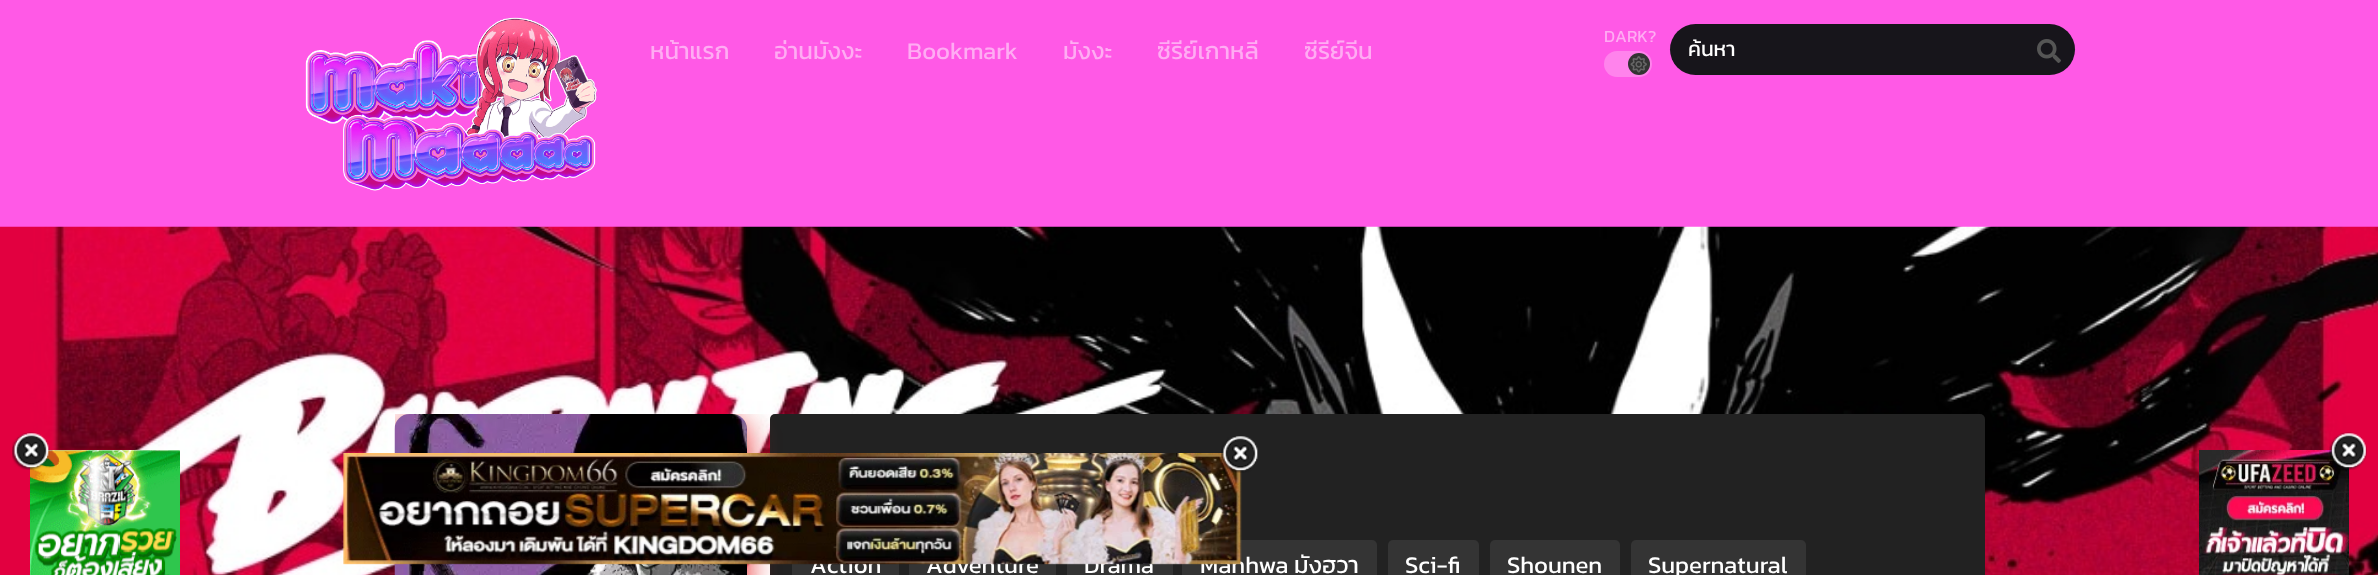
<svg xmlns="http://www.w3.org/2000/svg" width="2378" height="575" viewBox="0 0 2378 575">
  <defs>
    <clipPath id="clip1"><rect x="1688" y="35" width="342" height="31"/></clipPath>
    <clipPath id="clip2"><rect x="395" y="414" width="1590" height="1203"/></clipPath>
  </defs>
  <rect width="100%" height="100%" fill="rgb(255,89,230)"/>
  <image x="305" y="17" width="292" height="174" href="pic1.png"/>
  <text x="1604" y="42" font-family="Kanit" font-size="17" fill="rgb(255,172,243)">DARK?</text>
  <rect x="1604" y="51" width="48" height="26" rx="13" fill="rgb(255,131,236)"/>
  <circle cx="1639" cy="64" r="11" fill="rgb(51,51,51)"/>
  <image x="1630" y="56" width="17" height="17" href="pic2.png"/>
  <g font-family="Kanit" font-size="24" fill="rgb(255,172,243)">
    <text x="650" y="59">หน้าแรก</text>
    <text x="774" y="59">อ่านมังงะ</text>
    <text x="907" y="59">Bookmark</text>
    <text x="1063" y="59">มังงะ</text>
    <text x="1157" y="59">ซีรีย์เกาหลี</text>
    <text x="1304" y="59">ซีรีย์จีน</text>
  </g>
  <rect x="1670" y="24" width="405" height="51" rx="25.5" fill="rgb(23,21,27)"/>
  <g clip-path="url(#clip1)">
    <text x="1688" y="56" font-family="Kanit" font-size="21" fill="rgb(255,255,255)">ค้นหา</text>
  </g>
  <image x="2037" y="39" width="24" height="24" href="pic3.png"/>
  <image x="0" y="226" width="2378" height="349" href="pic8.png"/>
  <image x="30" y="450" width="150" height="125" href="pic5.png"/>
  <image x="12" y="432" width="38" height="38" href="pic4.png"/>
  <rect x="770" y="414" width="1215" height="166" rx="5" fill="rgb(34,34,34)"/>
  <rect x="792" y="563" width="107" height="12" fill="rgb(52,52,52)"/>
  <g clip-path="url(#clip2)">
    <rect x="395" y="422" width="352" height="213" rx="15" fill="rgb(235,38,38)" filter="blur(15px)"/>
  </g>
  <image x="394" y="414" width="353" height="161" href="pic9.png"/>
  <text x="810" y="573" font-family="Kanit" font-size="24" fill="rgb(255,255,255)">Action</text>
  <rect x="909" y="563" width="147" height="12" fill="rgb(52,52,52)"/>
  <text x="926" y="573" font-family="Kanit" font-size="24" fill="rgb(255,255,255)">Adventure</text>
  <rect x="1067" y="563" width="106" height="12" fill="rgb(52,52,52)"/>
  <text x="1084" y="573" font-family="Kanit" font-size="24" fill="rgb(255,255,255)">Drama</text>
  <rect x="1182" y="540" width="195" height="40" rx="5" fill="rgb(52,52,52)"/>
  <text x="1200" y="573" font-family="Kanit" font-size="24" fill="rgb(255,255,255)">Manhwa มังฮวา</text>
  <image x="343" y="453" width="899" height="112" href="pic7.png"/>
  <image x="1221" y="436" width="37" height="37" href="pic6.png"/>
  <rect x="1388" y="540" width="91" height="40" rx="5" fill="rgb(52,52,52)"/>
  <text x="1405" y="573" font-family="Kanit" font-size="24" fill="rgb(255,255,255)">Sci-fi</text>
  <rect x="1490" y="540" width="130" height="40" rx="5" fill="rgb(52,52,52)"/>
  <text x="1507" y="573" font-family="Kanit" font-size="24" fill="rgb(255,255,255)">Shounen</text>
  <rect x="1631" y="540" width="175" height="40" rx="5" fill="rgb(52,52,52)"/>
  <text x="1648" y="573" font-family="Kanit" font-size="24" fill="rgb(255,255,255)">Supernatural</text>
  <image x="2199" y="450" width="150" height="125" href="pic11.png"/>
  <image x="2329" y="432" width="38" height="38" href="pic10.png"/>
</svg>
